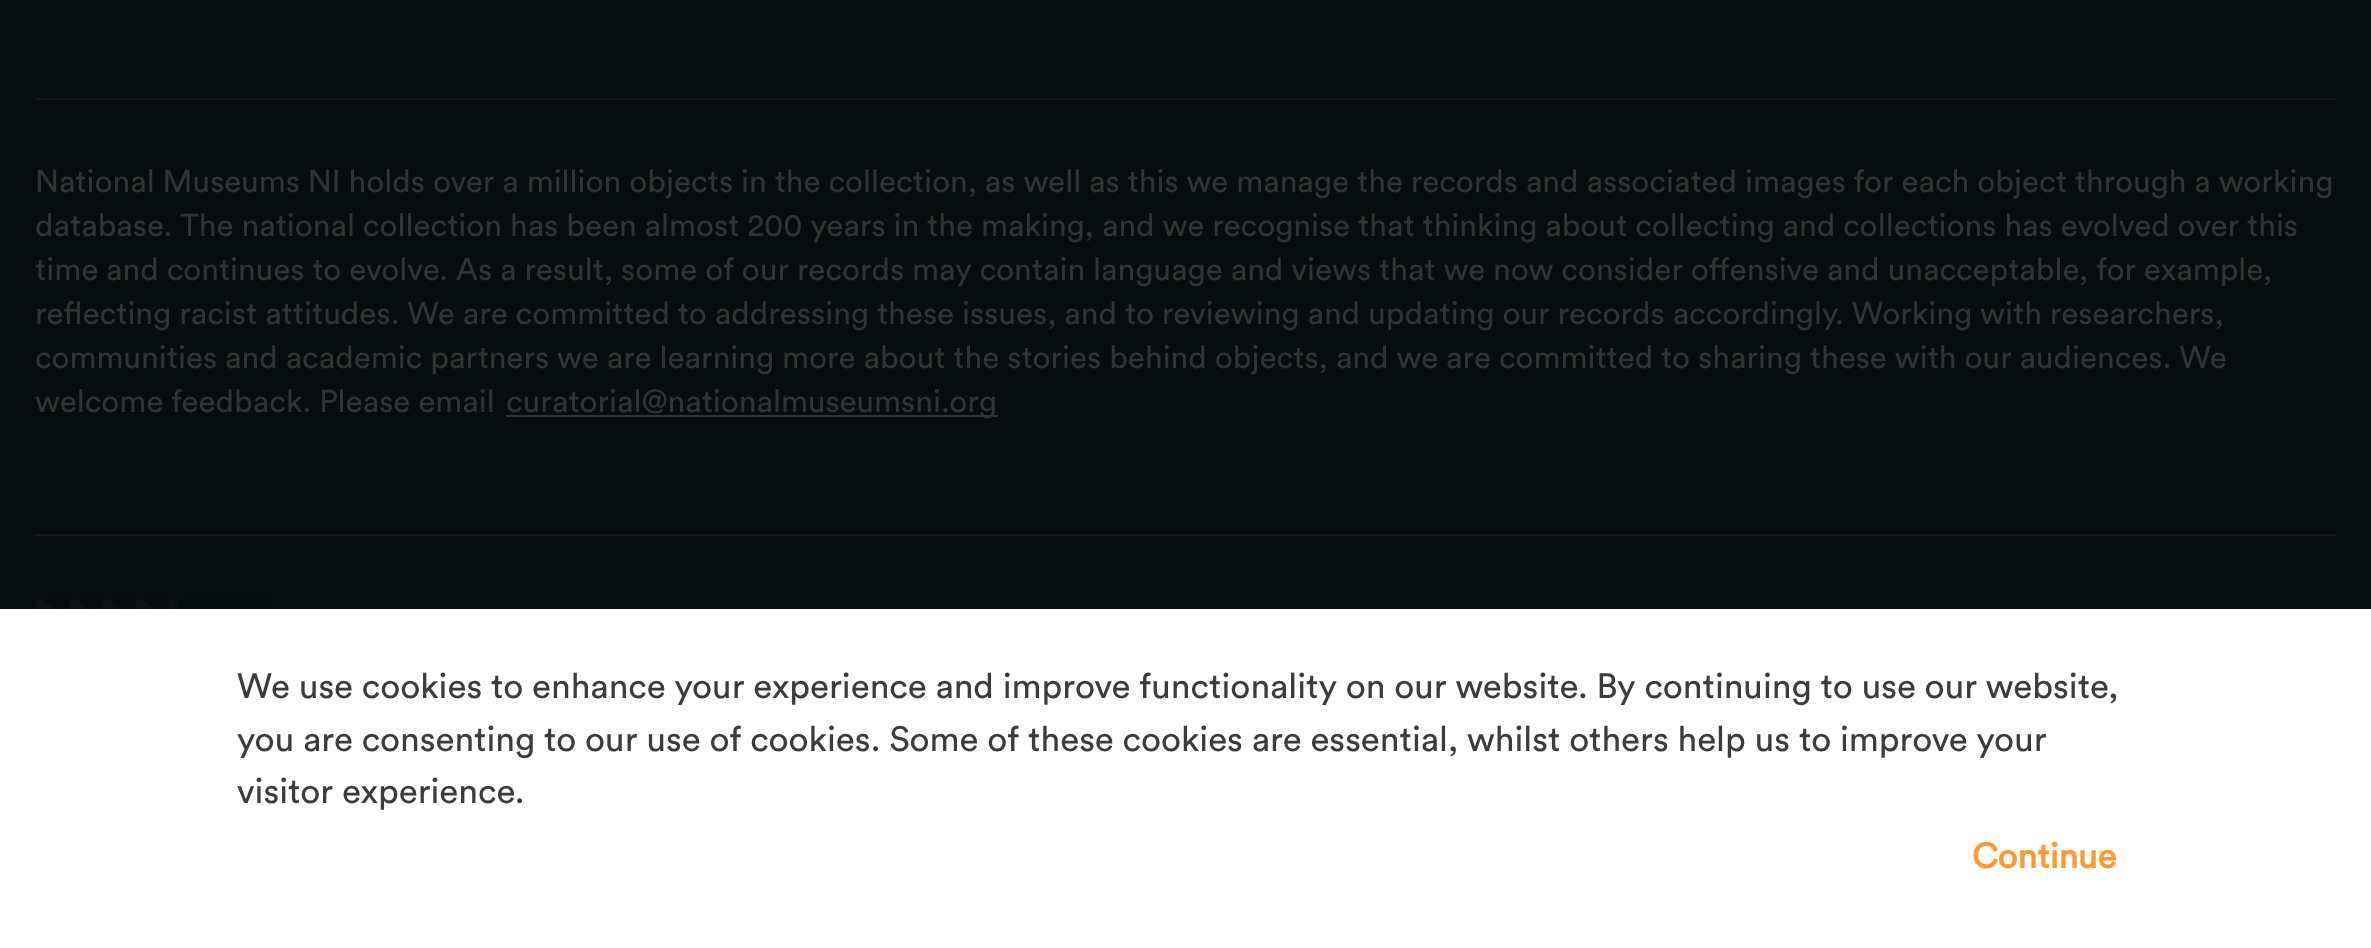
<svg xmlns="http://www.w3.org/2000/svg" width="2371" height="948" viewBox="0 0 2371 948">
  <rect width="100%" height="100%" fill="rgb(7,12,14)"/>
  <rect x="35" y="98" width="2301" height="2" fill="rgb(20,24,25)"/>
  <g font-family="Circular" font-size="31.5" fill="rgb(51,51,51)">
    <text>
      <tspan x="35" y="192">National Museums NI holds over a million objects in the collection, as well as this we manage the records and associated images for each object through a working</tspan>
      <tspan x="35" y="236">database. The national collection has been almost 200 years in the making, and we recognise that thinking about collecting and collections has evolved over this</tspan>
      <tspan x="35" y="280">time and continues to evolve. As a result, some of our records may contain language and views that we now consider offensive and unacceptable, for example,</tspan>
      <tspan x="35" y="324">reflecting racist attitudes. We are committed to addressing these issues, and to reviewing and updating our records accordingly. Working with researchers,</tspan>
      <tspan x="35" y="368">communities and academic partners we are learning more about the stories behind objects, and we are committed to sharing these with our audiences. We</tspan>
      <tspan x="35" y="412">welcome feedback. Please email</tspan>
    </text>
  </g>
  <rect x="506" y="415" width="492" height="2" fill="rgb(51,51,51)"/>
  <text x="506" y="412" font-family="Circular" font-size="31.5" fill="rgb(51,51,51)">curatorial@nationalmuseumsni.org</text>
  <rect x="35" y="534" width="2301" height="2" fill="rgb(20,24,25)"/>
  <image x="36" y="598" width="235" height="11" href="pic1.png"/>
  <rect x="0" y="609" width="2371" height="339" fill="rgb(255,255,255)"/>
  <g font-family="Circular" font-size="35" fill="rgb(60,60,59)">
    <text>
      <tspan x="237" y="698">We use cookies to enhance your experience and improve functionality on our website. By continuing to use our website,</tspan>
      <tspan x="237" y="751">you are consenting to our use of cookies. Some of these cookies are essential, whilst others help us to improve your</tspan>
      <tspan x="237" y="803">visitor experience.</tspan>
    </text>
  </g>
  <text x="1972" y="868" font-family="Circular" font-size="35" font-weight="bold" fill="rgb(255,153,51)">Continue</text>
</svg>
